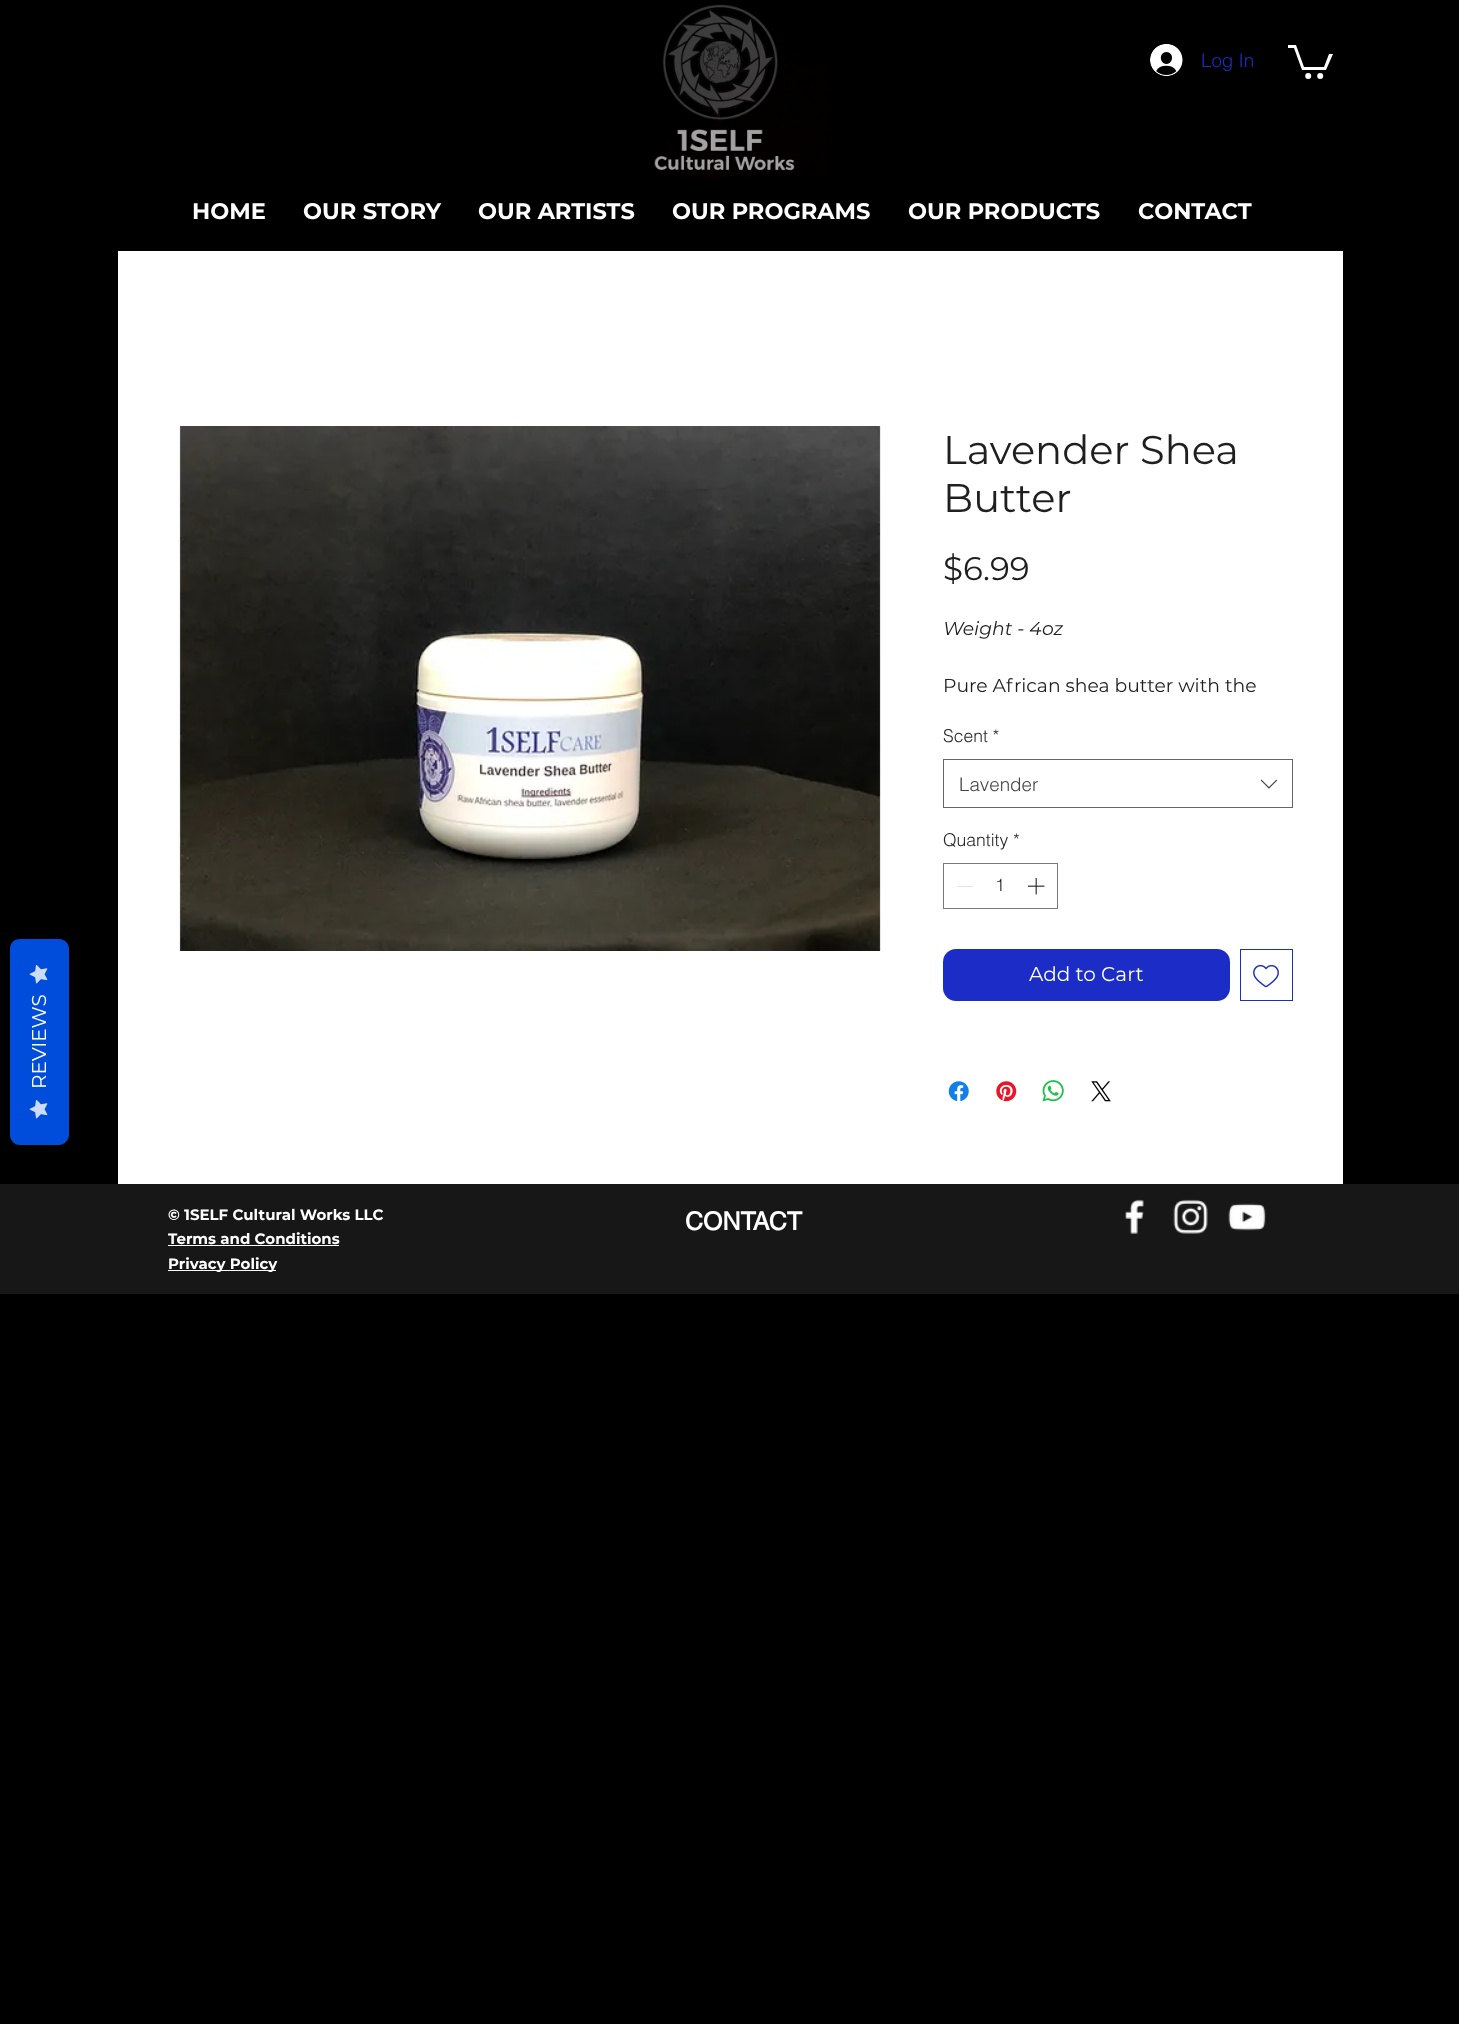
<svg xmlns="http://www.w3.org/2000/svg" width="1459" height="2024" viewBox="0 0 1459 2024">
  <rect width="100%" height="100%" fill="rgb(0,0,0)"/>
  <path d="M10 1135V949C10 943 14 939 20 939H59C64 939 69 943 69 949V1135C69 1140 64 1145 59 1145H20C14 1145 10 1140 10 1135Z" fill="rgb(0,77,219)"/>
  <image x="29" y="965" width="19" height="19" href="pic1.png"/>
  <text x="46" y="1089" transform="rotate(-90 46 1089)" font-family="Montserrat" font-size="20" fill="rgb(255,255,255)">REVIEWS</text>
  <image x="29" y="1100" width="19" height="19" href="pic1.png"/>
  <image x="654" y="4" width="175" height="175" href="pic2.png"/>
  <image x="1150" y="44" width="33" height="32" href="pic3.png"/>
  <text x="1201" y="67" font-family="helvetica" font-size="18.75" font-weight="300" fill="rgb(28,45,199)">Log In</text>
  <path d="M1333 54L1326 70H1302L1294 48H1288V45H1296L1304 67H1324L1329 54" fill="rgb(255,255,255)"/>
  <circle cx="1320.2" cy="76.1" r="3" fill="rgb(255,255,255)"/>
  <circle cx="1308.2" cy="76.1" r="3" fill="rgb(255,255,255)"/>
  <g font-family="Montserrat" font-size="22.5" font-weight="bold" fill="rgb(255,255,255)">
    <text x="192" y="219">HOME</text>
    <text x="303" y="219">OUR STORY</text>
    <text x="478" y="219">OUR ARTISTS</text>
    <text x="672" y="219">OUR PROGRAMS</text>
    <text x="908" y="219">OUR PRODUCTS</text>
    <text x="1138" y="219">CONTACT</text>
  </g>
  <rect x="118" y="251" width="1225" height="933" fill="rgb(255,255,255)"/>
  <image x="179" y="426" width="702" height="525" href="pic4.png"/>
  <g font-family="Montserrat" font-size="40" fill="rgb(31,31,31)">
    <text>
      <tspan x="943" y="464">Lavender Shea</tspan>
      <tspan x="943" y="512">Butter</tspan>
    </text>
  </g>
  <text x="943" y="580" font-family="Montserrat" font-size="32.5" fill="rgb(31,31,31)">$6.99</text>
  <text x="943" y="635" font-family="Montserrat" font-size="18.75" font-style="italic" fill="rgb(31,31,31)">Weight - 4oz</text>
  <text x="943" y="692" font-family="Montserrat" font-size="18.75" fill="rgb(31,31,31)">Pure African shea butter with the</text>
  <text x="943" y="742" font-family="helvetica" font-size="17.5" font-weight="300" fill="rgb(31,31,31)">Scent *</text>
  <rect x="943.5" y="759.5" width="349" height="48" fill="none" stroke="rgb(102,102,102)"/>
  <text x="959" y="791" font-family="helvetica" font-size="18.75" font-weight="300" fill="rgb(68,68,68)">Lavender</text>
  <image x="1260" y="779" width="18" height="10" href="pic5.png"/>
  <text x="943" y="846" font-family="helvetica" font-size="17.5" font-weight="300" fill="rgb(31,31,31)">Quantity *</text>
  <rect x="943.5" y="863.5" width="114" height="45" fill="none" stroke="rgb(121,121,121)"/>
  <rect x="957" y="886" width="16" height="1" fill="rgb(227,227,227)"/>
  <text x="995" y="891" font-family="helvetica" font-size="17.5" font-weight="300" fill="rgb(31,31,31)">1</text>
  <image x="1028" y="878" width="17" height="17" href="pic6.png"/>
  <rect x="943" y="949" width="287" height="52" rx="13" fill="rgb(28,45,199)"/>
  <text x="1029" y="981" font-family="Montserrat" font-size="20" fill="rgb(255,255,255)">Add to Cart</text>
  <rect x="1240.5" y="949.5" width="52" height="51" fill="none" stroke="rgb(28,45,199)"/>
  <image x="1253" y="965" width="26" height="23" href="pic7.png"/>
  <image x="948" y="1081" width="21" height="21" href="pic8.png"/>
  <image x="996" y="1081" width="21" height="21" href="pic9.png"/>
  <image x="1042" y="1080" width="22" height="22" href="pic10.png"/>
  <image x="1091" y="1081" width="20" height="21" href="pic11.png"/>
  <rect x="0" y="1184" width="1459" height="110" fill="rgb(23,23,23)"/>
  <text x="168" y="1220" font-family="Montserrat" font-size="15" font-weight="bold" fill="rgb(255,255,255)">© 1SELF Cultural Works LLC</text>
  <text x="685" y="1230" font-family="helvetica" font-size="25" font-weight="bold" fill="rgb(255,255,255)">CONTACT</text>
  <image x="1125" y="1199" width="19" height="35" href="pic12.png"/>
  <image x="1173" y="1199" width="35" height="35" href="pic13.png"/>
  <image x="1228" y="1203" width="38" height="28" href="pic14.png"/>
  <text x="168" y="1244" font-family="Montserrat" font-size="15" font-weight="bold" fill="rgb(255,255,255)">Terms and Conditions</text>
  <rect x="168" y="1245" width="171" height="1" fill="rgb(255,255,255)"/>
  <rect x="168" y="1270" width="108" height="1" fill="rgb(255,255,255)"/>
  <text x="168" y="1269" font-family="Montserrat" font-size="15" font-weight="bold" fill="rgb(255,255,255)">Privacy Policy</text>
</svg>
